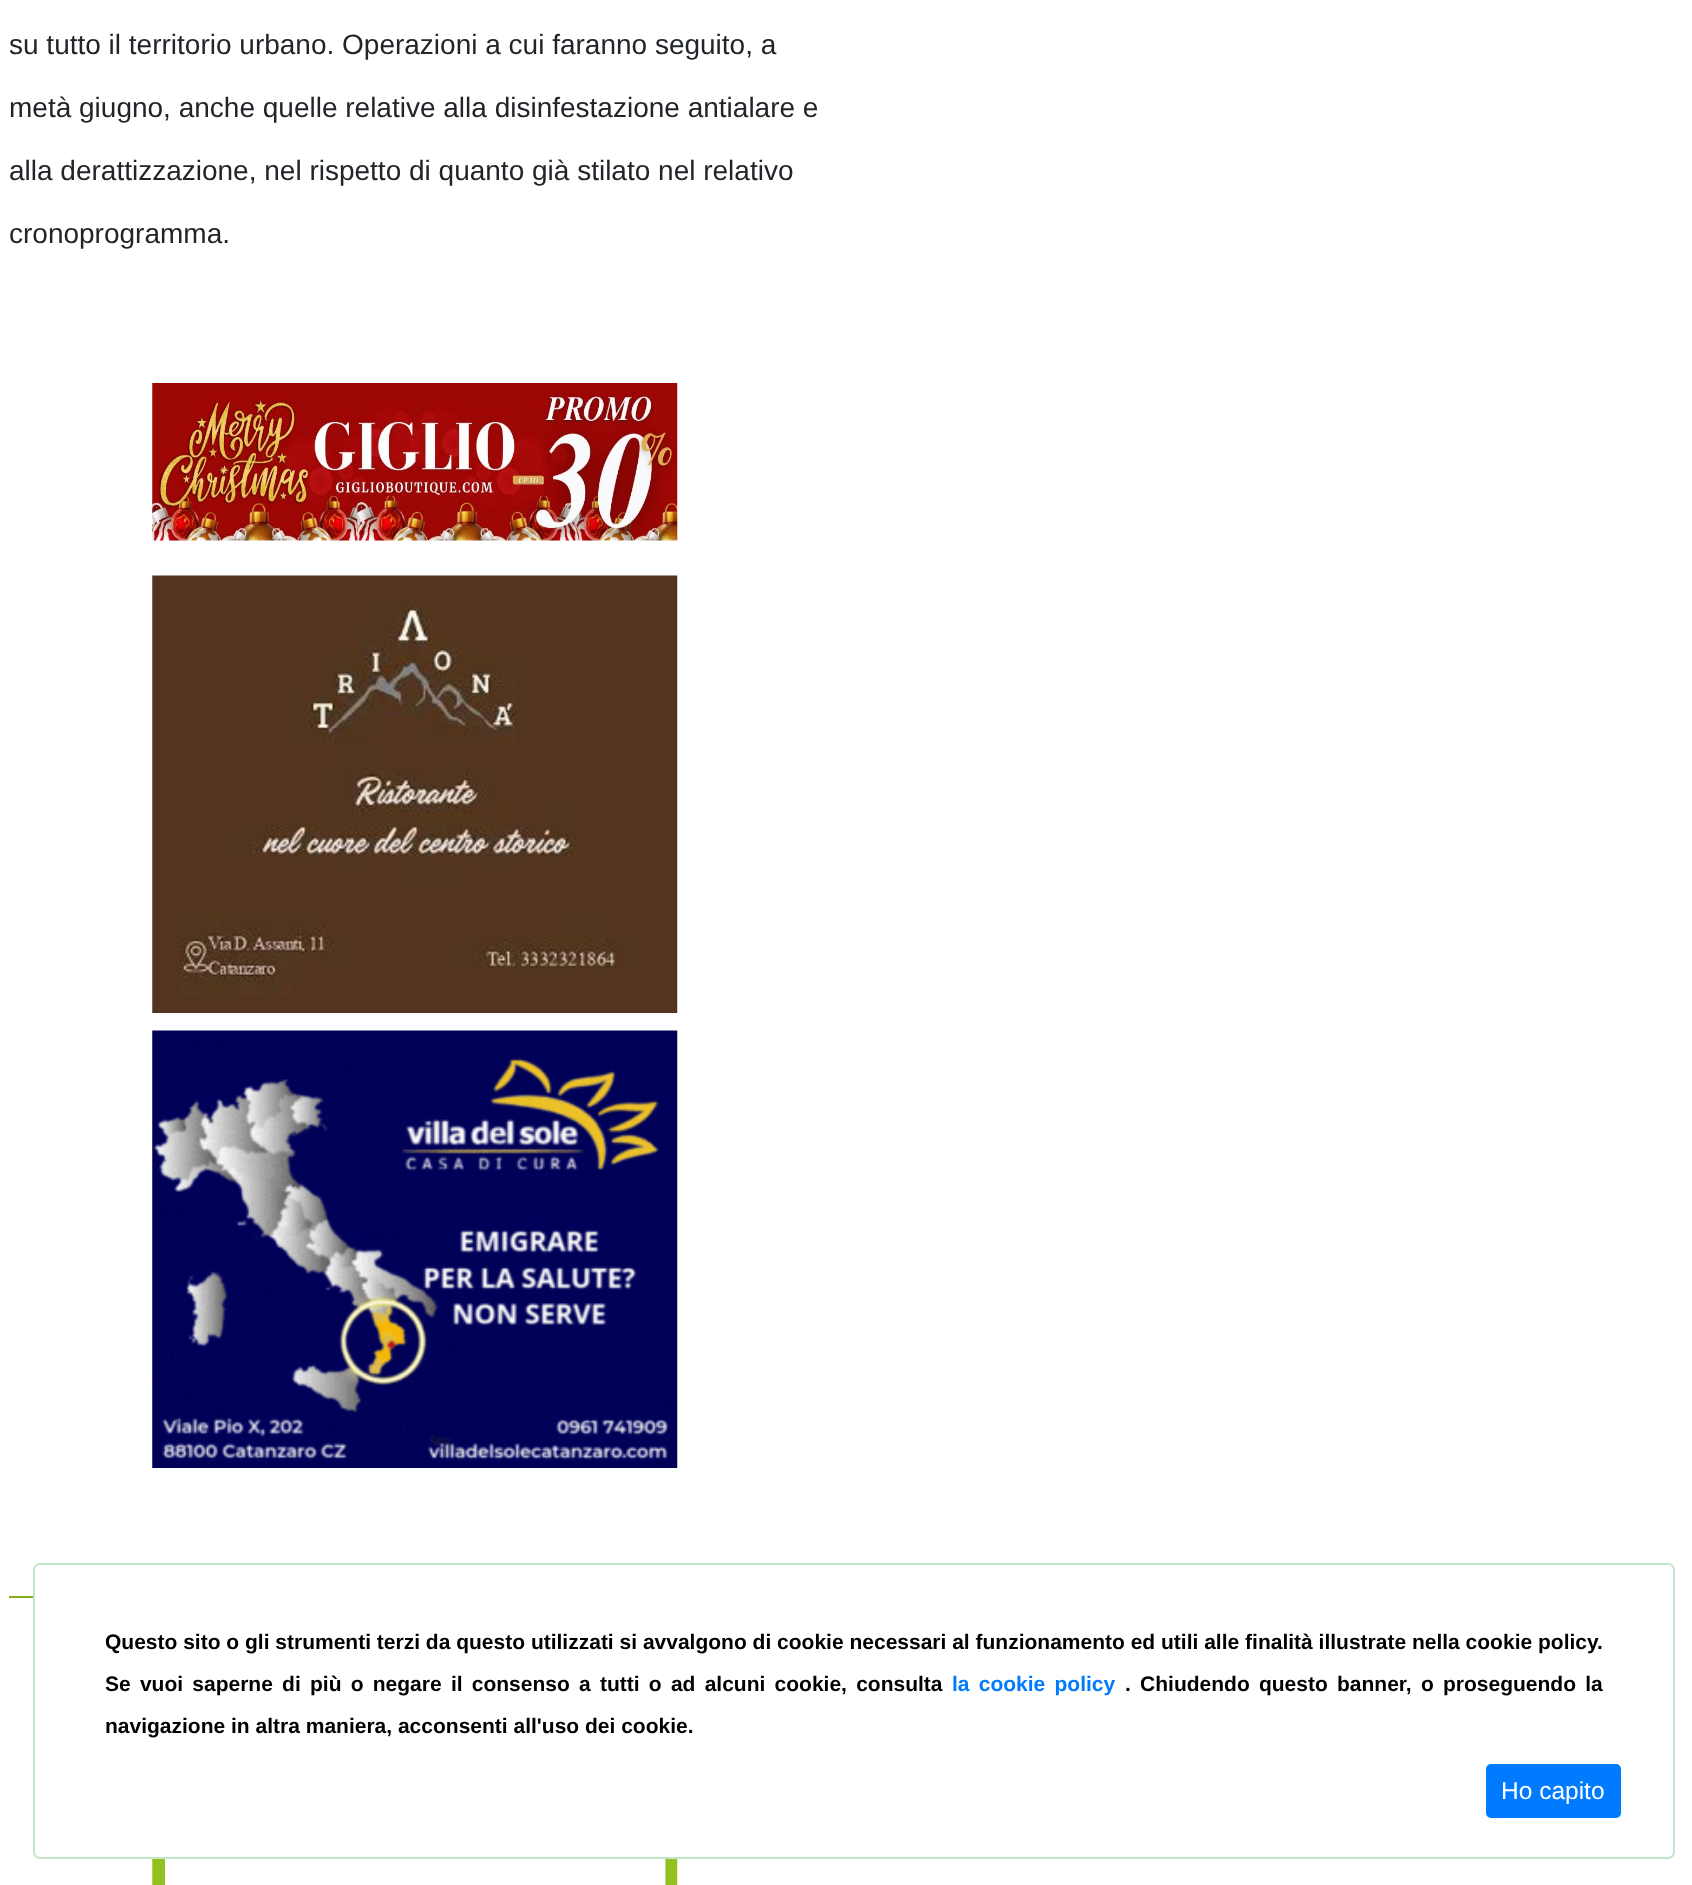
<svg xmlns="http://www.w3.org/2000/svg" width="1692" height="1885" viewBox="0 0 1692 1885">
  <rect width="100%" height="100%" fill="rgb(255,255,255)"/>
  <g font-family="Liberation Sans" font-size="28" fill="rgb(33,37,41)">
    <text x="9" y="54">su tutto il territorio urbano. Operazioni a cui faranno seguito, a</text>
    <text x="9" y="117">metà giugno, anche quelle relative alla disinfestazione antialare e</text>
    <text x="9" y="180">alla derattizzazione, nel rispetto di quanto già stilato nel relativo</text>
    <text x="9" y="243">cronoprogramma.</text>
  </g>
  <image x="152" y="383" width="526" height="158" href="pic1.png"/>
  <image x="152" y="575" width="526" height="438" href="pic2.png"/>
  <image x="152" y="1030" width="526" height="438" href="pic3.png"/>
  <rect x="9" y="1596" width="24" height="2" fill="rgb(132,173,28)"/>
  <image x="152" y="1859" width="526" height="26" href="pic4.png"/>
  <rect x="34" y="1564" width="1640" height="294" rx="6" fill="none" stroke="rgb(195,230,203)" stroke-width="2"/>
  <g font-family="Liberation Sans" font-size="21" font-weight="bold" fill="rgb(0,0,0)">
    <text x="105" y="1649">Questo sito o gli strumenti terzi da questo utilizzati si avvalgono di cookie necessari al funzionamento ed utili alle finalità illustrate nella cookie policy.</text>
    <text x="105" y="1691" word-spacing="3.4">Se vuoi saperne di più o negare il consenso a tutti o ad alcuni cookie, consulta</text>
  </g>
  <text x="952" y="1691" word-spacing="3.4" font-family="Liberation Sans" font-size="21" font-weight="bold" fill="rgb(0,123,255)">la cookie policy</text>
  <g font-family="Liberation Sans" font-size="21" font-weight="bold" fill="rgb(0,0,0)">
    <text x="1125" y="1691" word-spacing="3.4">. Chiudendo questo banner, o proseguendo la</text>
    <text x="105" y="1733">navigazione in altra maniera, acconsenti all'uso dei cookie.</text>
  </g>
  <rect x="1487" y="1765" width="133" height="52" rx="4" fill="rgb(0,123,255)" stroke="rgb(0,123,255)" stroke-width="2"/>
  <text x="1501" y="1799" font-family="Liberation Sans" font-size="24.5" fill="rgb(255,255,255)">Ho capito</text>
</svg>
